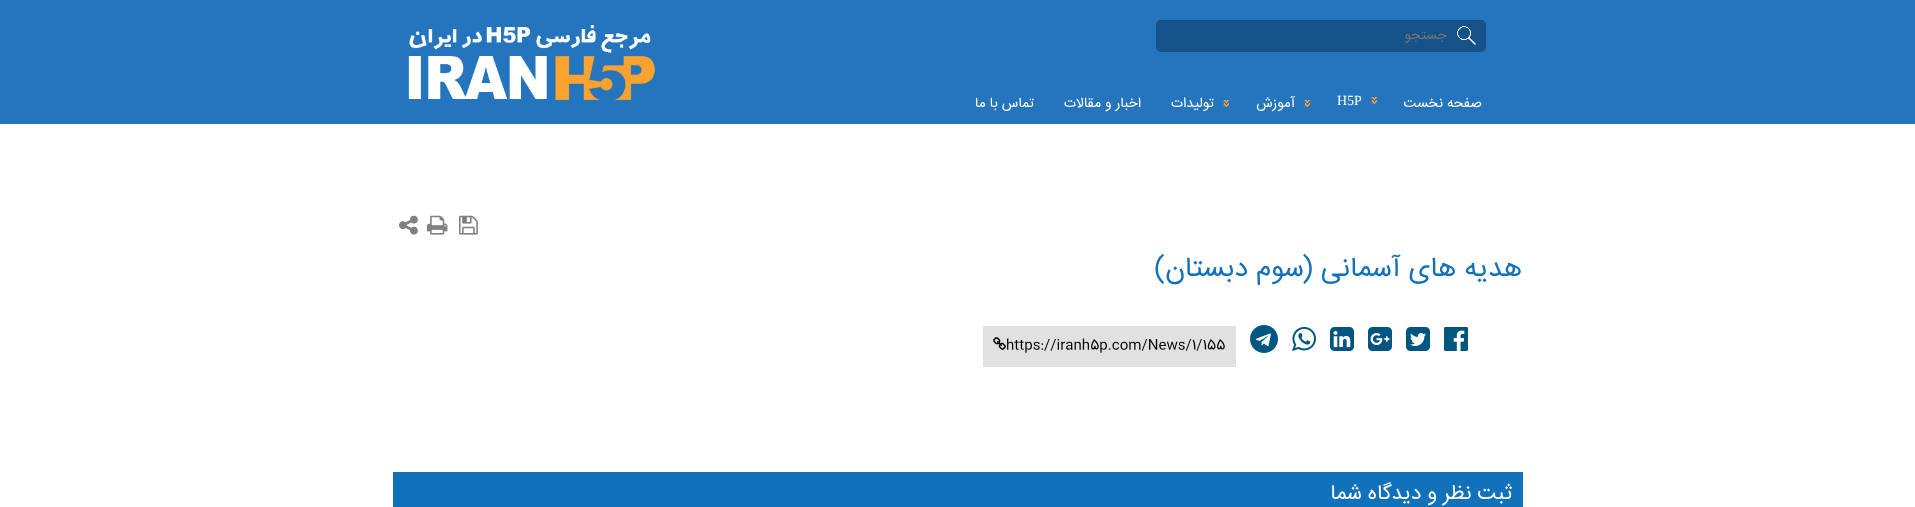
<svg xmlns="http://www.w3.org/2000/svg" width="1915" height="507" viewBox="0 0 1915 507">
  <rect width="100%" height="100%" fill="rgb(255,255,255)"/>
  <rect x="0" y="0" width="1915" height="124" fill="rgb(37,117,190)"/>
  <rect x="1156" y="20" width="330" height="32" rx="5" fill="rgb(21,82,137)"/>
  <image x="1457" y="26" width="19" height="19" href="pic1.png"/>
  <path d="M1161 21H1481C1484 21 1486 23 1486 26C1486 23 1484 20 1481 20H1161C1158 20 1156 23 1156 26C1156 23 1158 21 1161 21Z" fill="rgba(0,0,0,0.07)"/>
  <text x="1447" y="39" font-family="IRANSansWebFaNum" font-size="14" direction="rtl" fill="rgb(117,117,117)">جستجو</text>
  <text x="1482" y="107" font-family="IRANSansWebFaNum" font-size="14" direction="rtl" fill="rgb(255,255,255)">صفحه نخست</text>
  <image x="1370" y="97" width="7" height="7" href="pic2.png"/>
  <text x="1337" y="105" font-family="Liberation Serif" font-size="14" fill="rgb(255,255,255)">H5P</text>
  <image x="1303" y="100" width="7" height="7" href="pic2.png"/>
  <text x="1295" y="107" font-family="IRANSansWebFaNum" font-size="14" direction="rtl" fill="rgb(255,255,255)">آموزش</text>
  <image x="1222" y="100" width="7" height="7" href="pic2.png"/>
  <g font-family="IRANSansWebFaNum" font-size="14" direction="rtl" fill="rgb(255,255,255)">
    <text x="1214" y="107">تولیدات</text>
    <text x="1141" y="107">اخبار و مقالات</text>
    <text x="1034" y="107">تماس با ما</text>
  </g>
  <image x="408" y="25" width="247" height="75" href="pic3.png"/>
  <image x="459" y="215" width="19" height="20" href="pic4.png"/>
  <image x="427" y="215" width="21" height="20" href="pic5.png"/>
  <image x="399" y="215" width="19" height="20" href="pic6.png"/>
  <g font-family="IRANSansWebFaNum" font-size="28" direction="rtl" fill="rgb(17,113,187)">
    <text x="1522" y="276">هدیه های آسمانی</text>
    <text x="1313" y="276">(سوم دبستان)</text>
  </g>
  <image x="1444" y="327" width="24" height="24" href="pic7.png"/>
  <image x="1406" y="327" width="24" height="24" href="pic8.png"/>
  <image x="1368" y="327" width="24" height="24" href="pic9.png"/>
  <image x="1330" y="327" width="24" height="24" href="pic10.png"/>
  <image x="1292" y="326" width="24" height="25" href="pic11.png"/>
  <image x="1250" y="325" width="28" height="28" href="pic12.png"/>
  <rect x="983" y="326" width="253" height="41" fill="rgb(225,225,225)"/>
  <text x="1006" y="349" font-family="IRANSansWebFaNum" font-size="14" fill="rgb(0,0,0)">https://iranh5p.com/News/1/155</text>
  <image x="993" y="337" width="13" height="13" href="pic13.png"/>
  <rect x="393" y="472" width="1130" height="35" fill="rgb(17,113,187)"/>
  <text x="1512" y="499" font-family="IRANSansWebFaNum" font-size="21" direction="rtl" fill="rgb(255,255,255)">ثبت نظر و دیدگاه شما</text>
</svg>
